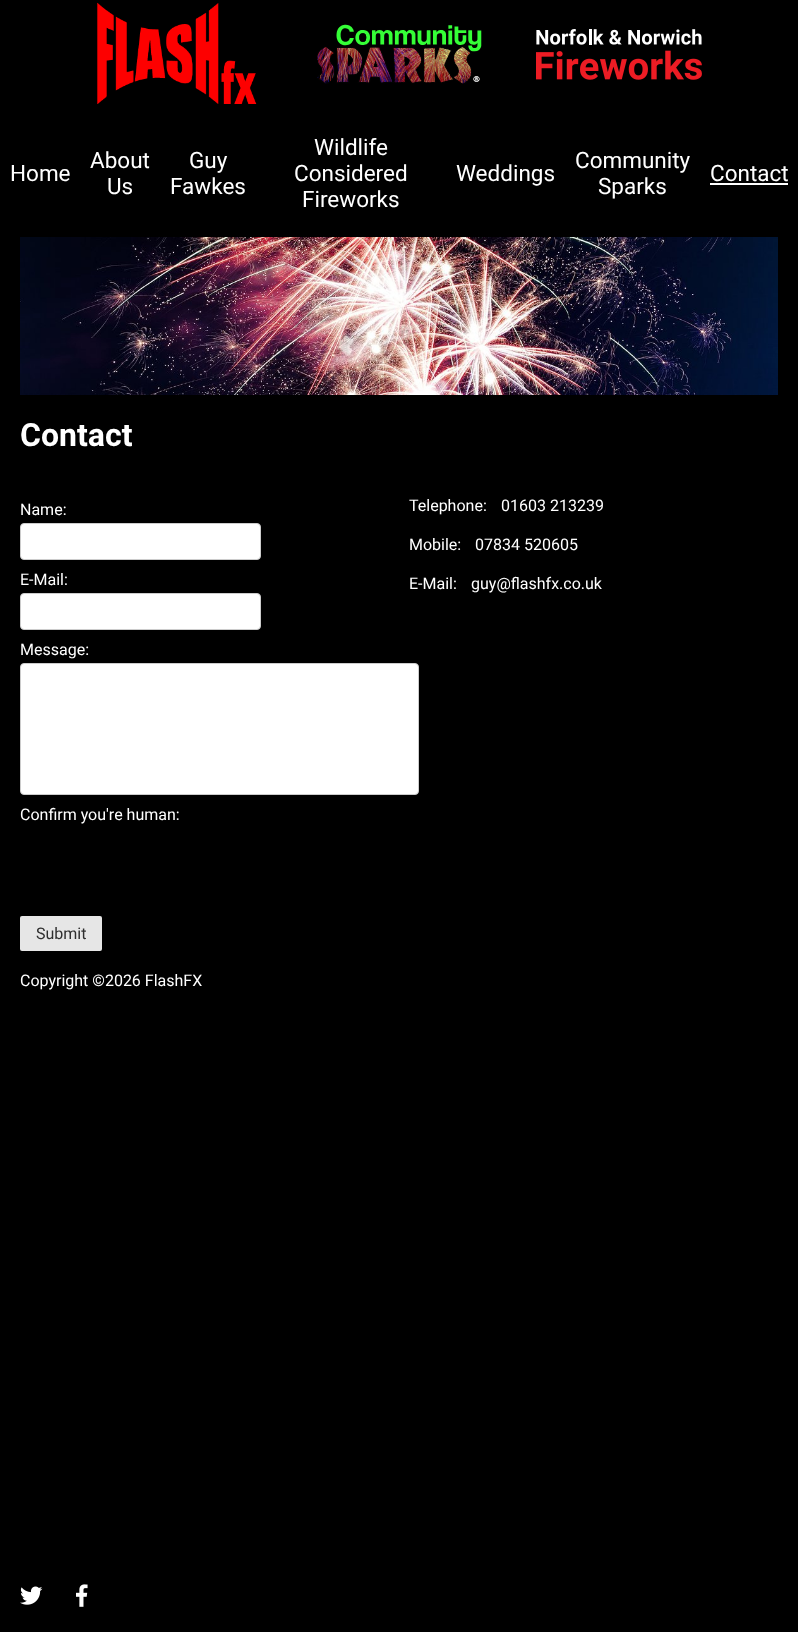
<svg xmlns="http://www.w3.org/2000/svg" width="798" height="1632" viewBox="0 0 798 1632">
  <rect width="100%" height="100%" fill="rgb(0,0,0)"/>
  <image x="97" y="2" width="160" height="102" href="pic1.png"/>
  <image x="317" y="24" width="165" height="60" href="pic2.png"/>
  <image x="536" y="29" width="166" height="51" href="pic3.png"/>
  <g font-family="Roboto" font-size="22.5" fill="rgb(255,255,255)">
    <text x="10" y="181">Home</text>
    <text x="90" y="168">About</text>
    <text x="107" y="194">Us</text>
    <text x="189" y="168">Guy</text>
    <text x="170" y="194">Fawkes</text>
    <text x="314" y="155">Wildlife</text>
    <text x="294" y="181">Considered</text>
    <text x="302" y="207">Fireworks</text>
    <text x="456" y="181">Weddings</text>
    <text x="575" y="168">Community</text>
    <text x="598" y="194">Sparks</text>
    <text x="710" y="181">Contact</text>
  </g>
  <rect x="710" y="183" width="78" height="2" fill="rgb(255,255,255)"/>
  <image x="20" y="237" width="758" height="158" href="pic4.png"/>
  <text x="20" y="446" font-family="Roboto" font-size="32" font-weight="bold" fill="rgb(255,255,255)">Contact</text>
  <text x="20" y="515" font-family="Roboto" font-size="16" fill="rgb(255,255,255)">Name:</text>
  <rect x="20.5" y="523.5" width="240" height="36" rx="3.5" fill="rgb(255,255,255)" stroke="rgb(204,204,204)"/>
  <text x="20" y="585" font-family="Roboto" font-size="16" fill="rgb(255,255,255)">E-Mail:</text>
  <rect x="20.5" y="593.5" width="240" height="36" rx="3.5" fill="rgb(255,255,255)" stroke="rgb(204,204,204)"/>
  <text x="20" y="655" font-family="Roboto" font-size="16" fill="rgb(255,255,255)">Message:</text>
  <rect x="20.5" y="663.5" width="398" height="131" rx="3.5" fill="rgb(255,255,255)" stroke="rgb(204,204,204)"/>
  <text x="20" y="820" font-family="Roboto" font-size="16" fill="rgb(255,255,255)">Confirm you're human:</text>
  <rect x="20" y="916" width="82" height="35" rx="2" fill="rgb(230,230,230)"/>
  <text x="36" y="939" font-family="Roboto" font-size="16" fill="rgb(46,46,46)">Submit</text>
  <g font-family="Roboto" font-size="16" fill="rgb(255,255,255)">
    <text x="409" y="511">Telephone:</text>
    <text x="501" y="511">01603 213239</text>
    <text x="409" y="550">Mobile:</text>
    <text x="475" y="550">07834 520605</text>
    <text x="409" y="589">E-Mail:</text>
    <text x="471" y="589">guy@flashfx.co.uk</text>
    <text x="20" y="986">Copyright ©2026 FlashFX</text>
  </g>
  <image x="20" y="1586" width="23" height="19" href="pic5.png"/>
  <image x="76" y="1584" width="12" height="23" href="pic6.png"/>
</svg>
